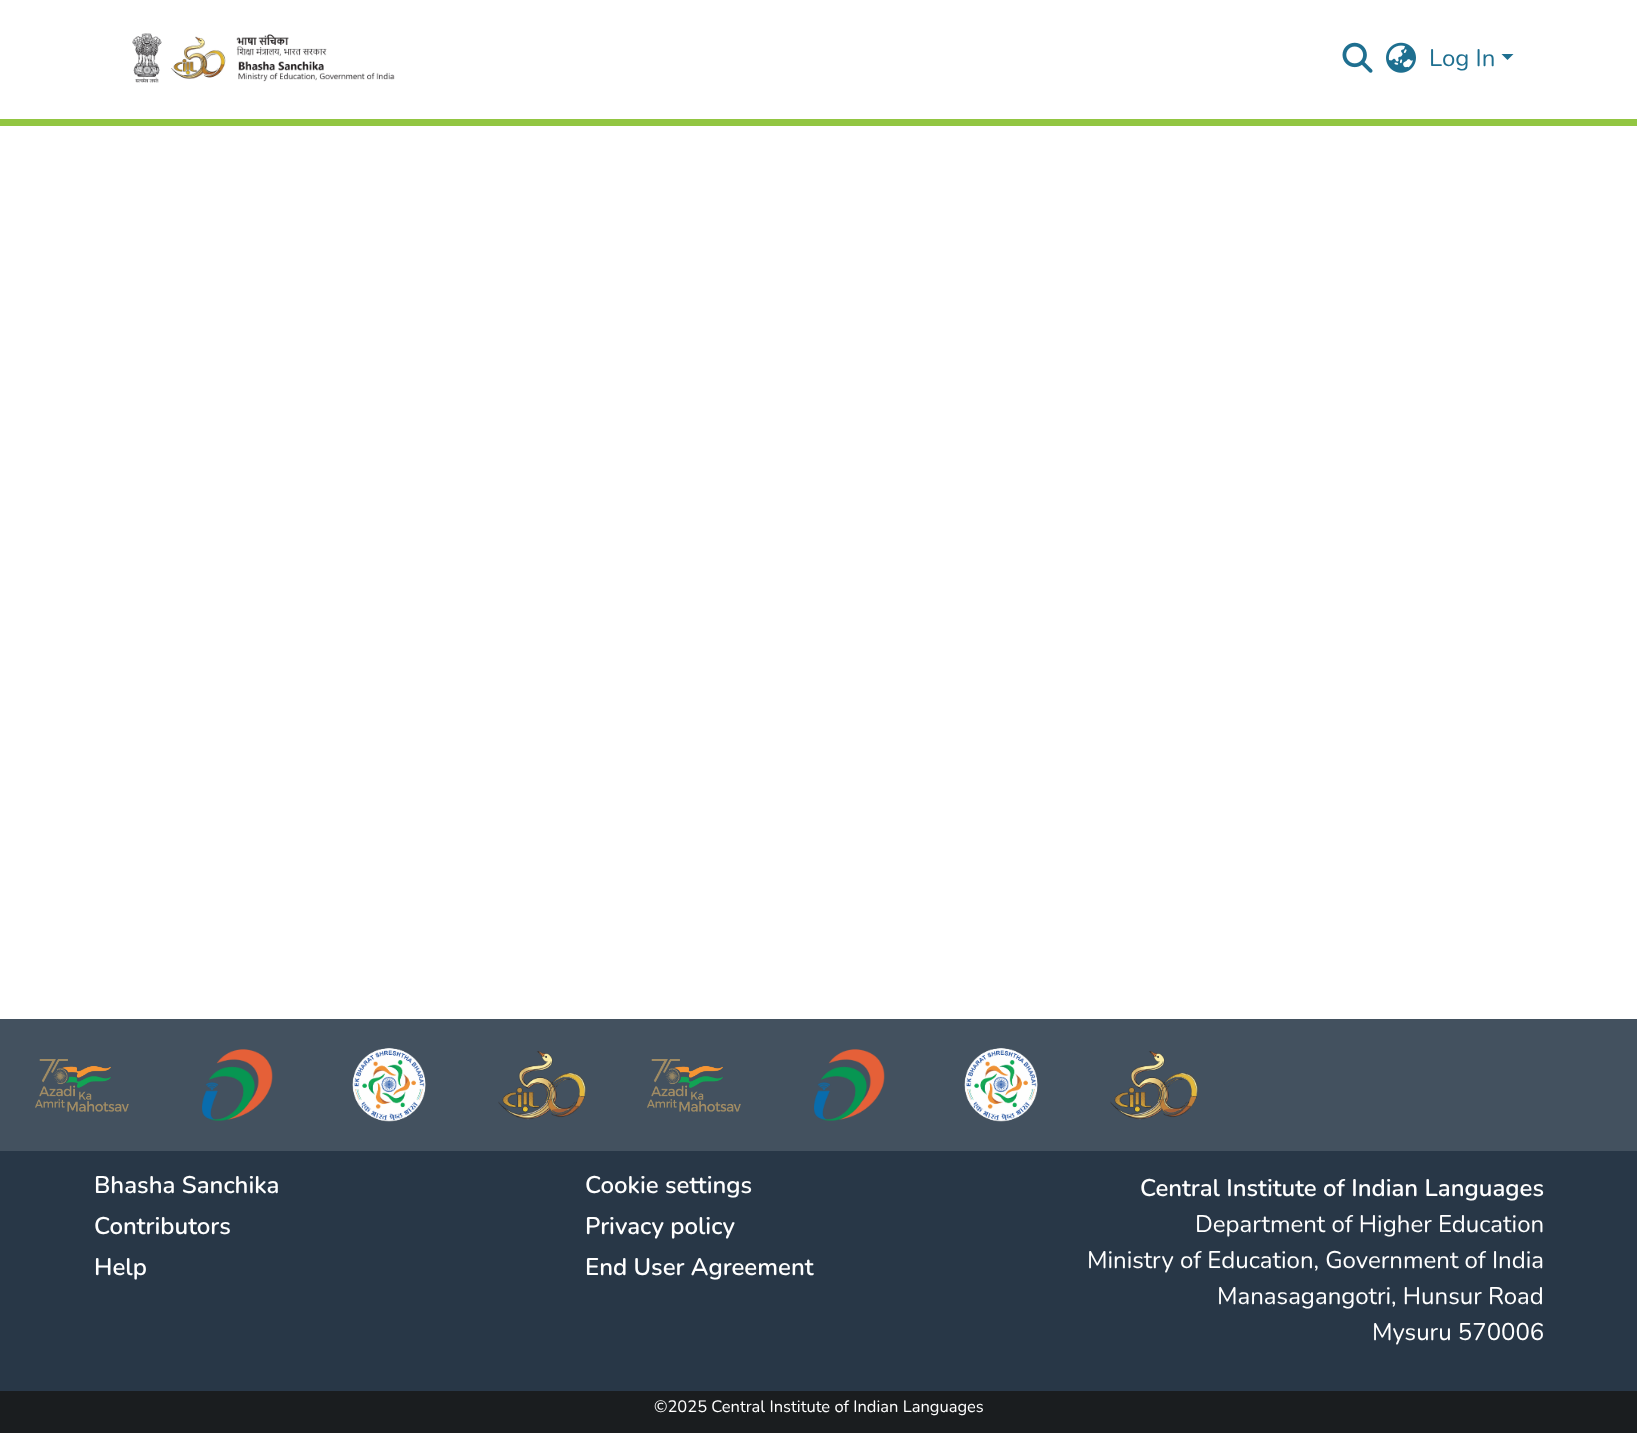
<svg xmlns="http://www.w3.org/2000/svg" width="1637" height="1434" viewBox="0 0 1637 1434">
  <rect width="100%" height="100%" fill="rgb(255,255,255)"/>
  <rect x="0" y="119" width="1637" height="7" fill="rgb(146,198,66)"/>
  <image x="132" y="33" width="263" height="50" href="pic1.png"/>
  <image x="1342" y="42" width="31" height="31" href="pic2.png"/>
  <image x="1386" y="42" width="30" height="31" href="pic3.png"/>
  <text x="1429" y="66" font-family="Nunito" font-size="24" fill="rgb(30,111,144)">Log In</text>
  <path d="M1501.5 54H1513.5L1507.5 60Z" fill="rgb(30,111,144)"/>
  <rect x="0" y="1019" width="1637" height="132" fill="rgb(67,81,95)"/>
  <image x="35" y="1059" width="94" height="53" href="pic4.png"/>
  <image x="202" y="1049" width="71" height="72" href="pic5.png"/>
  <image x="352" y="1048" width="74" height="74" href="pic6.png"/>
  <image x="498" y="1051" width="88" height="69" href="pic7.png"/>
  <image x="647" y="1059" width="94" height="53" href="pic4.png"/>
  <image x="814" y="1049" width="71" height="72" href="pic5.png"/>
  <image x="964" y="1048" width="74" height="74" href="pic6.png"/>
  <image x="1110" y="1051" width="88" height="69" href="pic7.png"/>
  <rect x="0" y="1151" width="1637" height="240" fill="rgb(40,55,71)"/>
  <g font-family="Nunito" font-size="24" font-weight="600" fill="rgb(255,255,255)">
    <text>
      <tspan x="94" y="1193">Bhasha Sanchika</tspan>
      <tspan x="94" y="1234">Contributors</tspan>
      <tspan x="94" y="1275">Help</tspan>
    </text>
    <text>
      <tspan x="585" y="1193">Cookie settings</tspan>
      <tspan x="585" y="1234">Privacy policy</tspan>
      <tspan x="585" y="1275">End User Agreement</tspan>
    </text>
    <text x="1140" y="1196">Central Institute of Indian Languages</text>
  </g>
  <g font-family="Nunito" font-size="24" fill="rgb(255,255,255)">
    <text x="1195" y="1232">Department of Higher Education</text>
    <text x="1087" y="1268">Ministry of Education, Government of India</text>
    <text x="1217" y="1304">Manasagangotri, Hunsur Road</text>
    <text x="1372" y="1340">Mysuru 570006</text>
  </g>
  <rect x="0" y="1391" width="1637" height="42" fill="rgb(26,29,31)"/>
  <text x="654" y="1412" font-family="Nunito" font-size="16.5" fill="rgb(255,255,255)">©2025 Central Institute of Indian Languages</text>
</svg>
